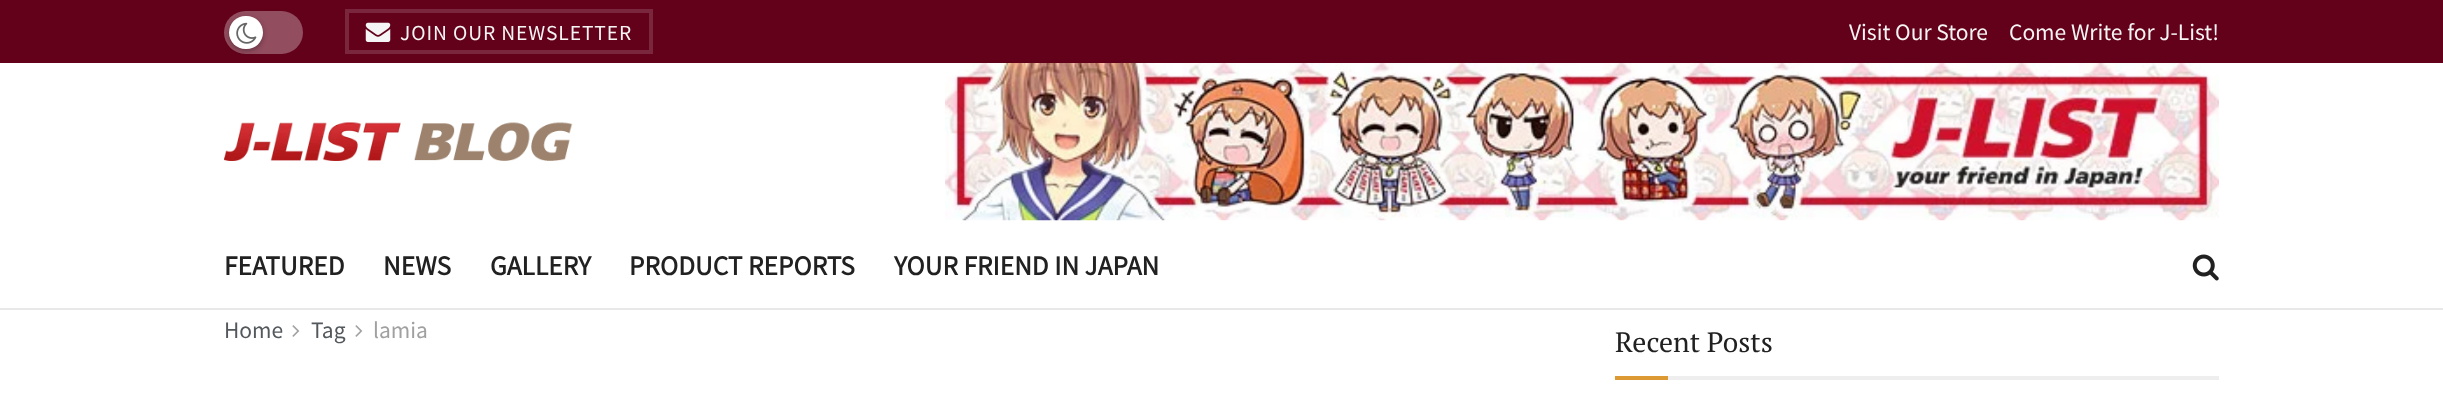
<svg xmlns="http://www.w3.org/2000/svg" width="2443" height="405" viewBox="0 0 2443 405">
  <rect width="100%" height="100%" fill="rgb(255,255,255)"/>
  <rect x="0" y="0" width="2443" height="63" fill="rgb(99,0,26)"/>
  <rect x="224" y="11" width="79" height="43" rx="21.5" fill="rgb(146,77,95)"/>
  <rect x="229" y="18" width="34" height="33" rx="16.5" fill="rgba(0,0,0,0.3)" filter="blur(2.5px)"/>
  <rect x="229" y="16" width="34" height="33" rx="16.5" fill="rgb(255,255,255)"/>
  <image x="236" y="22" width="21" height="22" href="pic1.png"/>
  <rect x="347" y="11" width="304" height="41" fill="none" stroke="rgb(122,38,60)" stroke-width="4"/>
  <image x="365" y="22" width="26" height="20" href="pic2.png"/>
  <text x="400" y="40" font-family="Noto Sans JP" font-size="19.25" font-weight="100" letter-spacing="0.9" fill="rgb(245,245,245)">JOIN OUR NEWSLETTER</text>
  <g font-family="Noto Sans JP" font-size="21" font-weight="100" fill="rgb(245,245,245)">
    <text x="1849" y="40">Visit Our Store</text>
    <text x="2009" y="40">Come Write for J-List!</text>
  </g>
  <image x="224" y="122" width="349" height="39" href="pic3.png"/>
  <image x="945" y="63" width="1274" height="158" href="pic4.png"/>
  <rect x="0" y="308" width="2443" height="2" fill="rgb(232,232,232)"/>
  <g font-family="Noto Sans JP" font-size="24.5" font-weight="bold" fill="rgb(33,33,33)">
    <text x="224" y="275">FEATURED</text>
    <text x="383" y="275">NEWS</text>
    <text x="490" y="275">GALLERY</text>
    <text x="629" y="275">PRODUCT REPORTS</text>
    <text x="894" y="275">YOUR FRIEND IN JAPAN</text>
  </g>
  <image x="2192" y="254" width="27" height="27" href="pic5.png"/>
  <text x="224" y="338" font-family="Noto Sans JP" font-size="21" font-weight="100" fill="rgb(83,88,92)">Home</text>
  <image x="292" y="325" width="8" height="12" href="pic6.png"/>
  <text x="311" y="338" font-family="Noto Sans JP" font-size="21" font-weight="100" fill="rgb(83,88,92)">Tag</text>
  <image x="355" y="325" width="8" height="12" href="pic6.png"/>
  <text x="373" y="338" font-family="Noto Sans JP" font-size="21" font-weight="100" fill="rgb(160,160,160)">lamia</text>
  <rect x="1668" y="376" width="551" height="4" fill="rgb(238,238,238)"/>
  <text x="1615" y="352" font-family="PT Serif" font-size="28" fill="rgb(33,33,33)">Recent Posts</text>
  <rect x="1615" y="376" width="53" height="4" fill="rgb(221,153,51)"/>
</svg>
